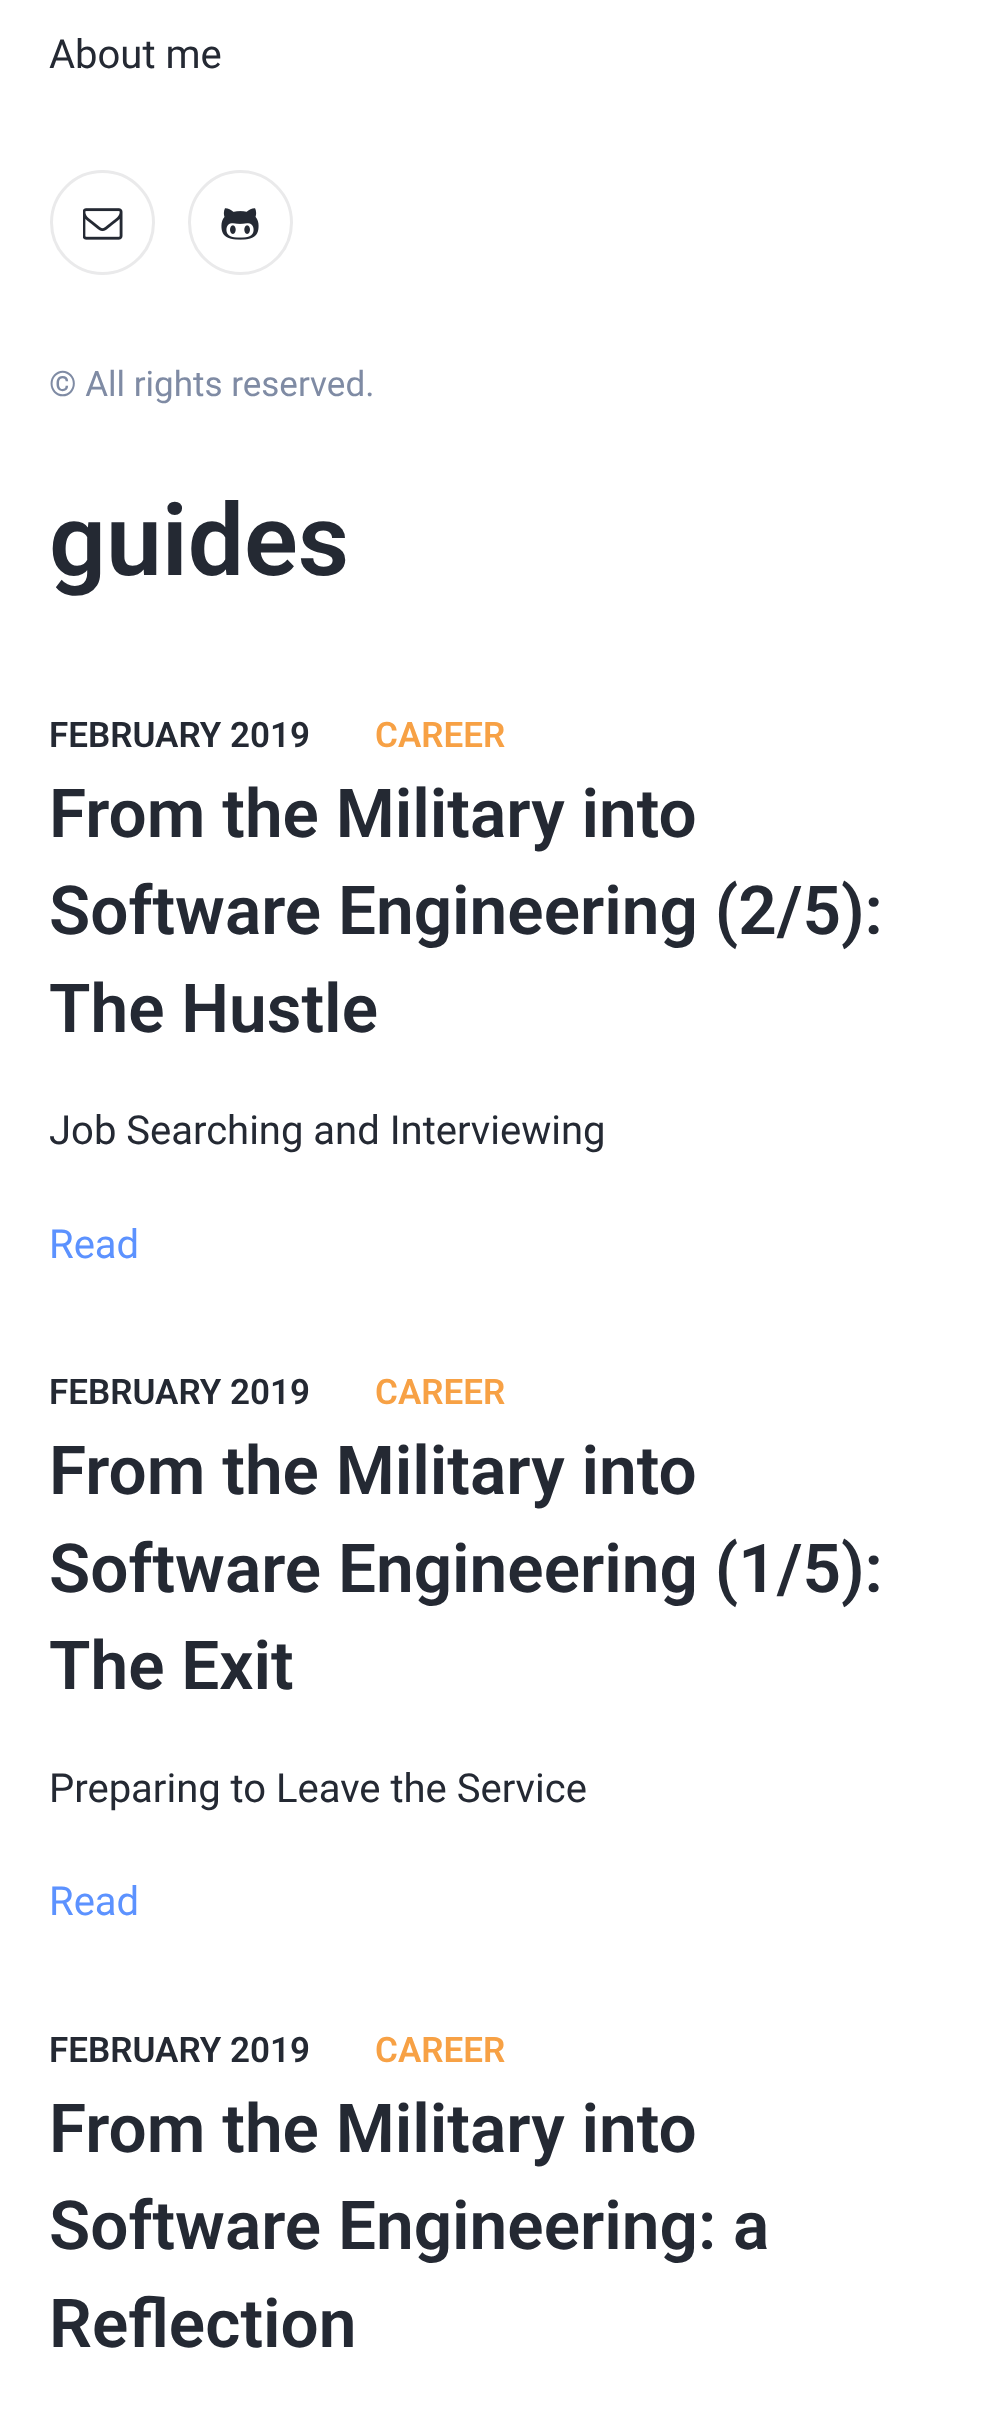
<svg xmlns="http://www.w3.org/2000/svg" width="997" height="2432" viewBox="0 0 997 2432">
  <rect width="100%" height="100%" fill="rgb(255,255,255)"/>
  <text x="49" y="68" font-family="Roboto" font-size="40" fill="rgb(36,41,51)">About me</text>
  <circle cx="102.5" cy="222.5" r="51" fill="none" stroke="rgb(234,234,235)" stroke-width="3"/>
  <image x="83" y="208" width="40" height="32" href="pic1.png"/>
  <circle cx="240.5" cy="222.5" r="51" fill="none" stroke="rgb(234,234,235)" stroke-width="3"/>
  <image x="221" y="208" width="38" height="32" href="pic2.png"/>
  <text x="49" y="396" font-family="Roboto" font-size="35" fill="rgb(127,139,164)">© All rights reserved.</text>
  <text x="49" y="575" font-family="Roboto" font-size="100" font-weight="600" fill="rgb(36,41,51)">guides</text>
  <text x="49" y="747" font-family="Roboto" font-size="35" font-weight="600" fill="rgb(36,41,51)">FEBRUARY 2019</text>
  <text x="375" y="747" font-family="Roboto" font-size="35" font-weight="600" fill="rgb(247,161,69)">CAREER</text>
  <g font-family="Roboto" font-size="67.5" font-weight="600" fill="rgb(36,41,51)">
    <text>
      <tspan x="49" y="837">From the Military into</tspan>
      <tspan x="49" y="934">Software Engineering (2/5):</tspan>
      <tspan x="49" y="1032">The Hustle</tspan>
    </text>
  </g>
  <text x="49" y="1144" font-family="Roboto" font-size="40" fill="rgb(36,41,51)">Job Searching and Interviewing</text>
  <text x="49" y="1258" font-family="Roboto" font-size="40" fill="rgb(92,146,255)">Read</text>
  <text x="49" y="1404" font-family="Roboto" font-size="35" font-weight="600" fill="rgb(36,41,51)">FEBRUARY 2019</text>
  <text x="375" y="1404" font-family="Roboto" font-size="35" font-weight="600" fill="rgb(247,161,69)">CAREER</text>
  <g font-family="Roboto" font-size="67.5" font-weight="600" fill="rgb(36,41,51)">
    <text>
      <tspan x="49" y="1494">From the Military into</tspan>
      <tspan x="49" y="1592">Software Engineering (1/5):</tspan>
      <tspan x="49" y="1689">The Exit</tspan>
    </text>
  </g>
  <text x="49" y="1802" font-family="Roboto" font-size="40" fill="rgb(36,41,51)">Preparing to Leave the Service</text>
  <text x="49" y="1915" font-family="Roboto" font-size="40" fill="rgb(92,146,255)">Read</text>
  <text x="49" y="2062" font-family="Roboto" font-size="35" font-weight="600" fill="rgb(36,41,51)">FEBRUARY 2019</text>
  <text x="375" y="2062" font-family="Roboto" font-size="35" font-weight="600" fill="rgb(247,161,69)">CAREER</text>
  <g font-family="Roboto" font-size="67.5" font-weight="600" fill="rgb(36,41,51)">
    <text>
      <tspan x="49" y="2152">From the Military into</tspan>
      <tspan x="49" y="2249">Software Engineering: a</tspan>
      <tspan x="49" y="2347">Reflection</tspan>
    </text>
  </g>
</svg>
